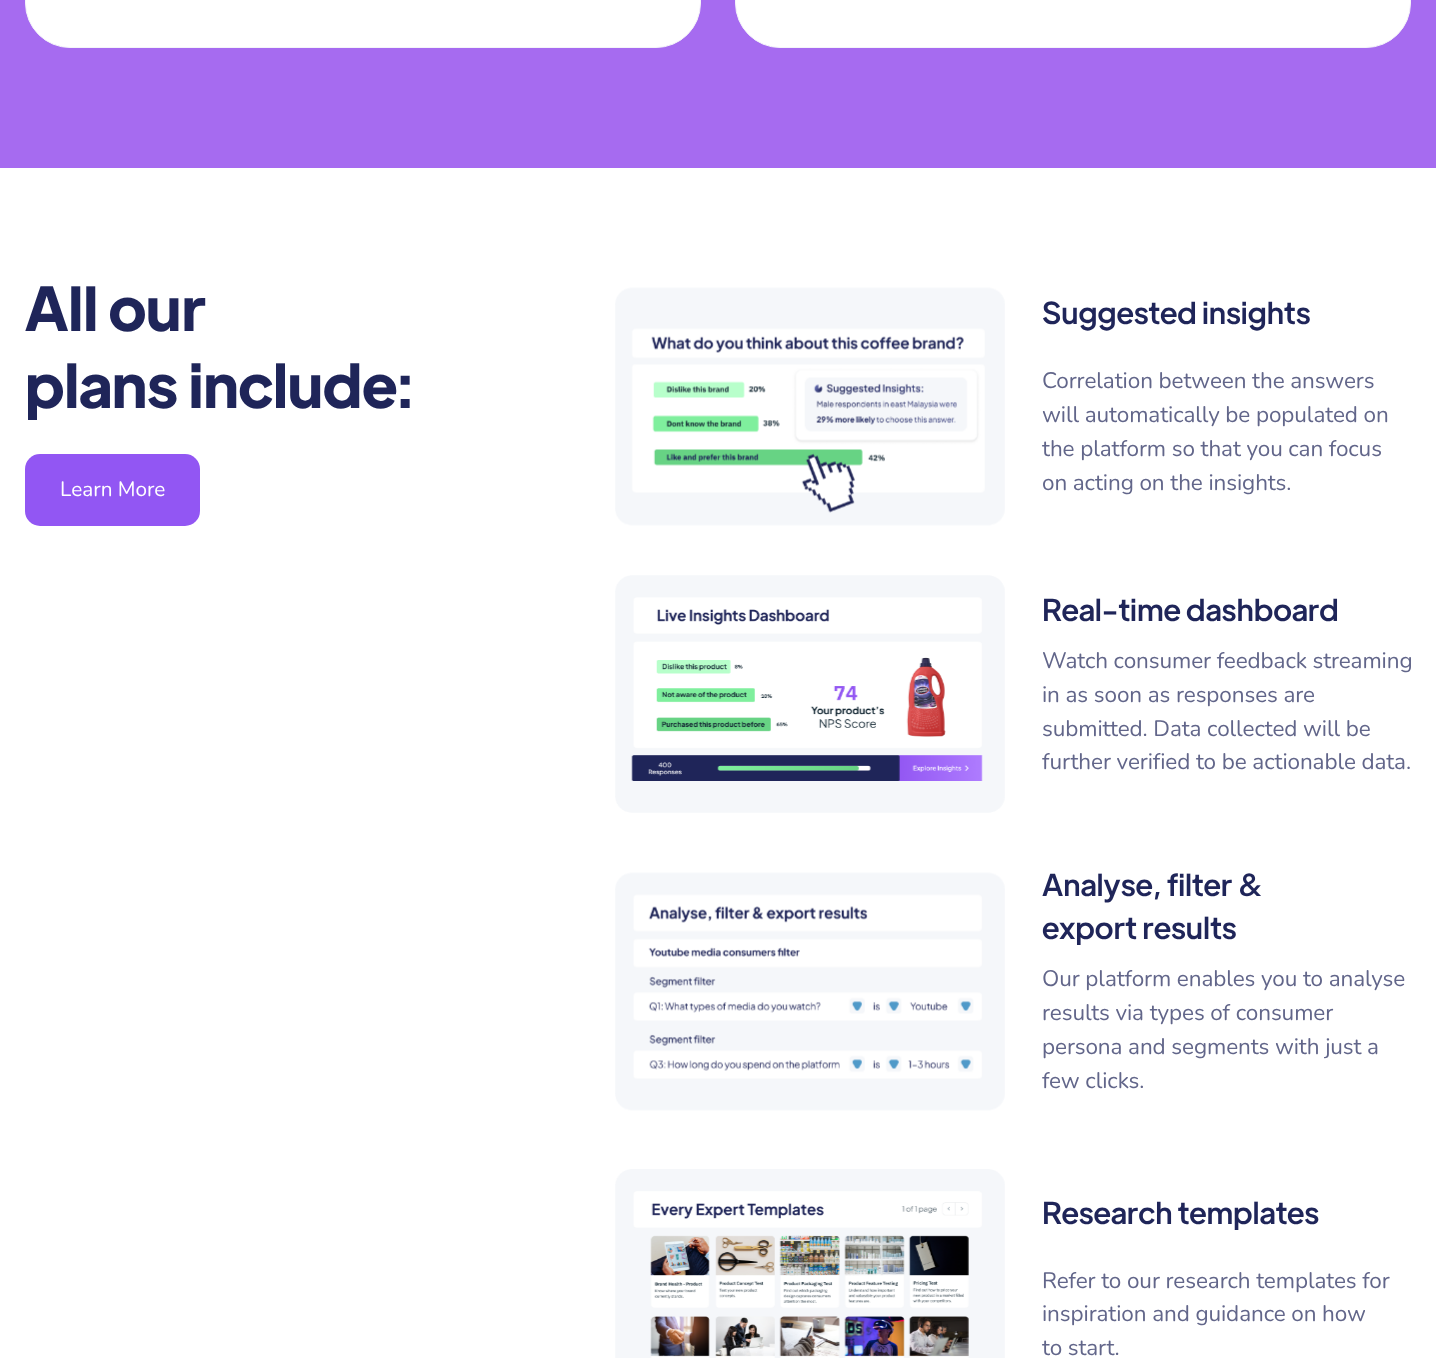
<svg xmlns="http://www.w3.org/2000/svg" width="1436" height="1358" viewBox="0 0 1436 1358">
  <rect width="100%" height="100%" fill="rgb(255,255,255)"/>
  <rect x="0" y="0" width="1436" height="168" fill="rgb(166,107,240)"/>
  <rect x="25.5" y="-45.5" width="675" height="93" rx="44.5" fill="rgb(255,255,255)" stroke="rgb(244,244,249)"/>
  <rect x="735.5" y="-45.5" width="675" height="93" rx="44.5" fill="rgb(255,255,255)" stroke="rgb(244,244,249)"/>
  <g font-family="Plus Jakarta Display" font-size="60" font-weight="bold" letter-spacing="-0.1" fill="rgb(31,37,89)">
    <text>
      <tspan x="25" y="331">All our</tspan>
      <tspan x="25" y="408">plans include:</tspan>
    </text>
  </g>
  <rect x="25" y="454" width="175" height="72" rx="15" fill="rgb(146,86,243)"/>
  <text x="60" y="496" font-family="Nunito" font-size="20.75" fill="rgb(255,255,255)">Learn More</text>
  <image x="615" y="287" width="390" height="239" href="pic1.png"/>
  <text x="1042" y="324" font-family="Plus Jakarta Display" font-size="30" font-weight="500" fill="rgb(31,37,89)">Suggested insights</text>
  <g font-family="Nunito" font-size="22.5" letter-spacing="-0.1" fill="rgb(98,102,138)">
    <text>
      <tspan x="1042" y="388">Correlation between the answers</tspan>
      <tspan x="1042" y="422">will automatically be populated on</tspan>
      <tspan x="1042" y="456">the platform so that you can focus</tspan>
      <tspan x="1042" y="490">on acting on the insights.</tspan>
    </text>
  </g>
  <image x="615" y="575" width="390" height="238" href="pic2.png"/>
  <text x="1042" y="621" font-family="Plus Jakarta Display" font-size="30" font-weight="500" fill="rgb(31,37,89)">Real-time dashboard</text>
  <g font-family="Nunito" font-size="22.5" letter-spacing="-0.1" fill="rgb(98,102,138)">
    <text>
      <tspan x="1042" y="668">Watch consumer feedback streaming</tspan>
      <tspan x="1042" y="702">in as soon as responses are</tspan>
      <tspan x="1042" y="736">submitted. Data collected will be</tspan>
      <tspan x="1042" y="769">further verified to be actionable data.</tspan>
    </text>
  </g>
  <image x="615" y="872" width="390" height="239" href="pic3.png"/>
  <g font-family="Plus Jakarta Display" font-size="30" font-weight="500" fill="rgb(31,37,89)">
    <text>
      <tspan x="1042" y="896">Analyse, filter &amp;</tspan>
      <tspan x="1042" y="939">export results</tspan>
    </text>
  </g>
  <g font-family="Nunito" font-size="22.5" letter-spacing="-0.1" fill="rgb(98,102,138)">
    <text>
      <tspan x="1042" y="986">Our platform enables you to analyse</tspan>
      <tspan x="1042" y="1020">results via types of consumer</tspan>
      <tspan x="1042" y="1054">persona and segments with just a</tspan>
      <tspan x="1042" y="1088">few clicks.</tspan>
    </text>
  </g>
  <image x="615" y="1169" width="390" height="189" href="pic4.png"/>
  <text x="1042" y="1224" font-family="Plus Jakarta Display" font-size="30" font-weight="500" fill="rgb(31,37,89)">Research templates</text>
  <g font-family="Nunito" font-size="22.5" letter-spacing="-0.1" fill="rgb(98,102,138)">
    <text>
      <tspan x="1042" y="1288">Refer to our research templates for</tspan>
      <tspan x="1042" y="1321">inspiration and guidance on how</tspan>
      <tspan x="1042" y="1355">to start.</tspan>
    </text>
  </g>
</svg>
